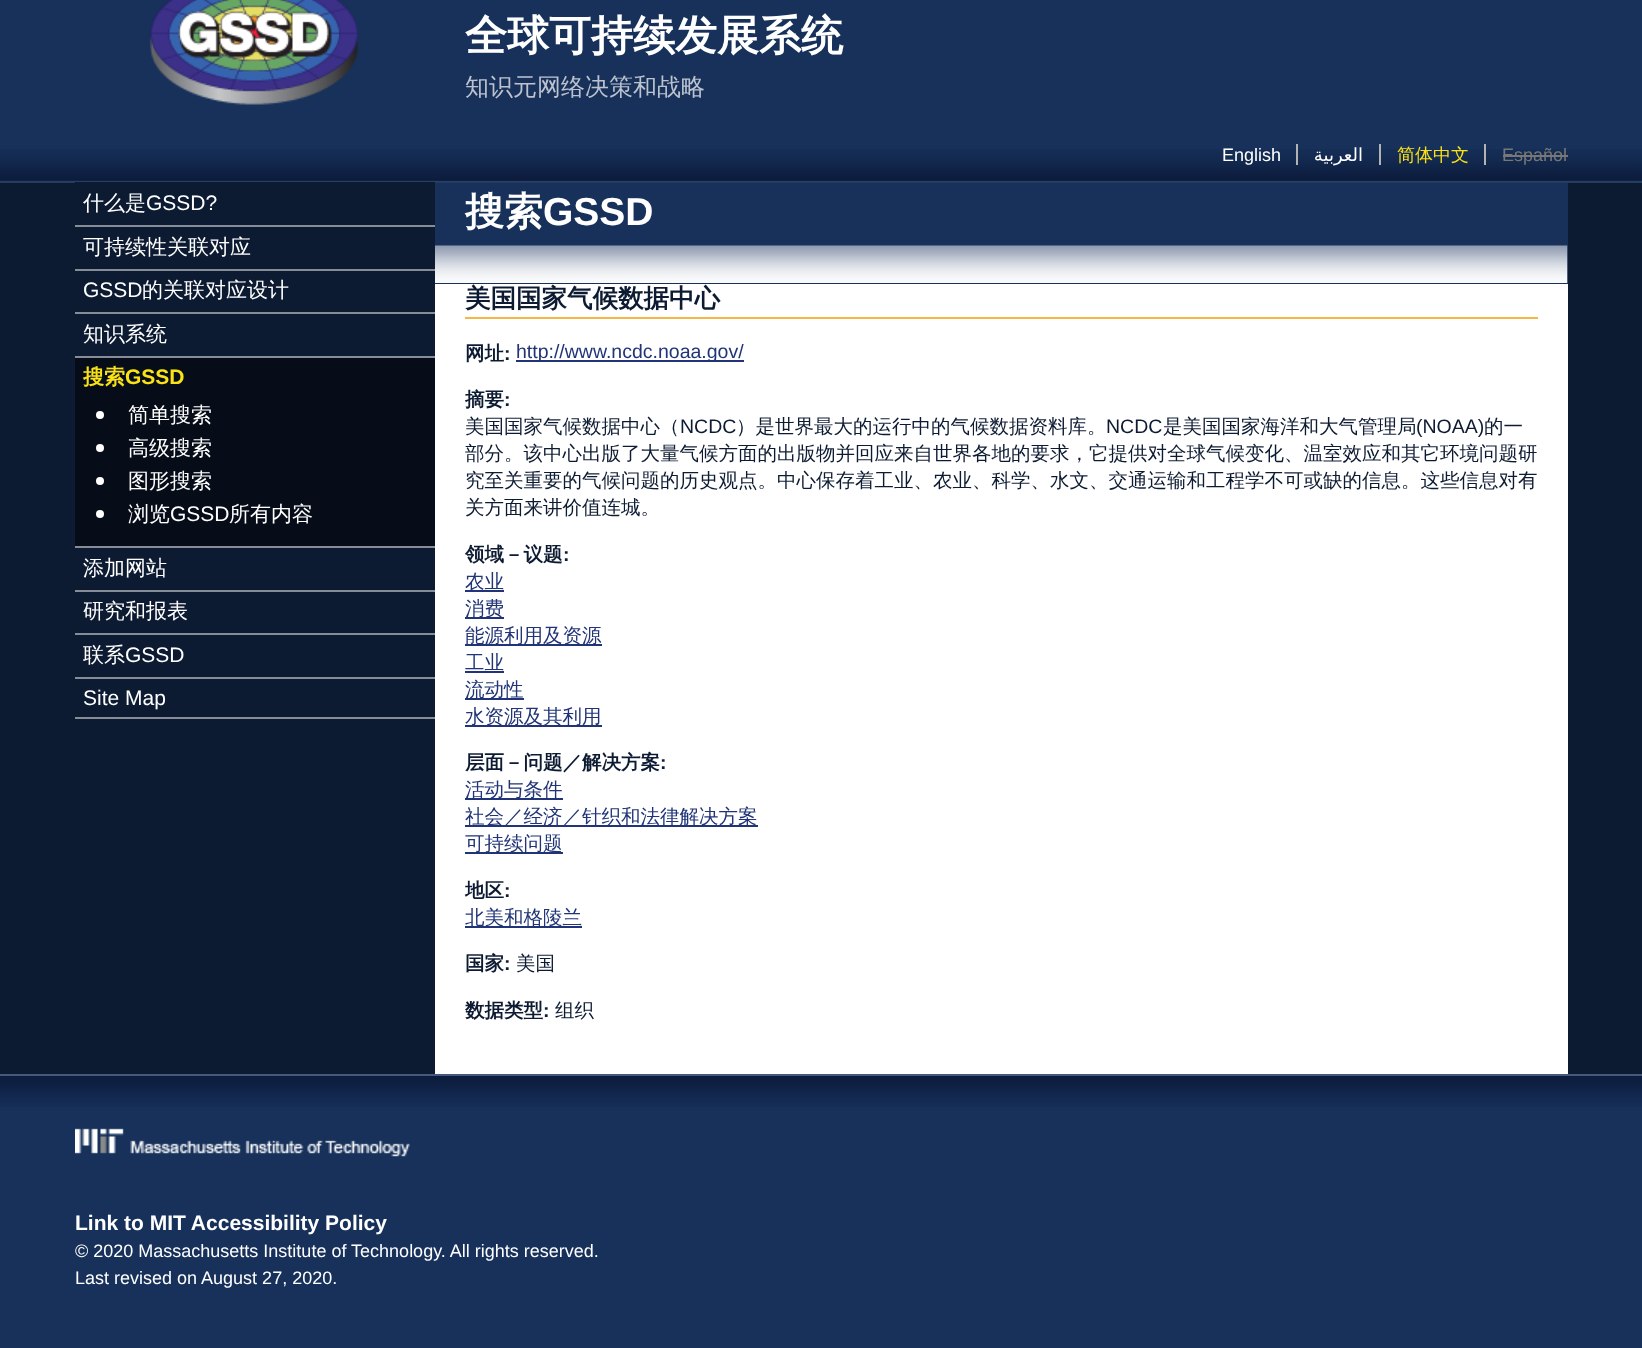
<svg xmlns="http://www.w3.org/2000/svg" width="1642" height="1348" viewBox="0 0 1642 1348">
  <rect width="100%" height="100%" fill="rgb(23,49,91)"/>
  <image x="0" y="149" width="1642" height="34" href="pic1.png"/>
  <image x="149" y="0" width="210" height="105" href="pic2.png"/>
  <text x="465" y="50" font-family="WenQuanYi Zen Hei" font-size="42" font-weight="bold" fill="rgb(255,255,255)">全球可持续发展系统</text>
  <text x="465" y="95" font-family="WenQuanYi Zen Hei" font-size="24" font-weight="500" fill="rgb(188,195,207)">知识元网络决策和战略</text>
  <text x="1222" y="161" font-family="Liberation Sans" font-size="18" fill="rgb(255,255,255)">English</text>
  <rect x="1296" y="144" width="2" height="21" fill="rgb(179,179,179)"/>
  <text x="1363" y="161" font-family="DejaVu Sans" font-size="18" direction="rtl" fill="rgb(255,255,255)">العربية</text>
  <rect x="1379" y="144" width="2" height="21" fill="rgb(179,179,179)"/>
  <text x="1397" y="161" font-family="WenQuanYi Zen Hei" font-size="18" font-weight="500" fill="rgb(250,226,22)">简体中文</text>
  <rect x="1484" y="144" width="2" height="21" fill="rgb(179,179,179)"/>
  <text x="1502" y="161" font-family="Liberation Sans" font-size="18" fill="rgb(119,119,119)">Español</text>
  <rect x="1503" y="155" width="65" height="2" fill="rgb(119,119,119)"/>
  <rect x="0" y="183" width="1642" height="891" fill="rgb(13,27,50)"/>
  <rect x="435" y="284" width="1133" height="790" fill="rgb(255,255,255)"/>
  <rect x="75" y="182" width="360" height="1" fill="rgb(13,27,50)"/>
  <rect x="75" y="717" width="360" height="2" fill="rgb(134,141,153)"/>
  <text x="83" y="210" font-family="WenQuanYi Zen Hei" font-size="21" font-weight="500" fill="rgb(255,255,255)">什么是</text>
  <text x="146" y="210" font-family="Liberation Sans" font-size="21" fill="rgb(255,255,255)">GSSD?</text>
  <rect x="75" y="225" width="360" height="2" fill="rgb(134,141,153)"/>
  <text x="83" y="254" font-family="WenQuanYi Zen Hei" font-size="21" font-weight="500" fill="rgb(255,255,255)">可持续性关联对应</text>
  <rect x="75" y="269" width="360" height="2" fill="rgb(134,141,153)"/>
  <text x="83" y="297" font-family="Liberation Sans" font-size="21" fill="rgb(255,255,255)">GSSD</text>
  <text x="142" y="297" font-family="WenQuanYi Zen Hei" font-size="21" font-weight="500" fill="rgb(255,255,255)">的关联对应设计</text>
  <rect x="75" y="312" width="360" height="2" fill="rgb(134,141,153)"/>
  <text x="83" y="341" font-family="WenQuanYi Zen Hei" font-size="21" font-weight="500" fill="rgb(255,255,255)">知识系统</text>
  <rect x="75" y="358" width="360" height="188" fill="rgb(6,13,25)"/>
  <rect x="75" y="356" width="360" height="2" fill="rgb(134,141,153)"/>
  <text x="83" y="384" font-family="WenQuanYi Zen Hei" font-size="21" font-weight="bold" fill="rgb(250,226,22)">搜索</text>
  <text x="125" y="384" font-family="Liberation Sans" font-size="21" font-weight="bold" fill="rgb(250,226,22)">GSSD</text>
  <circle cx="100" cy="415" r="4" fill="rgb(255,255,255)"/>
  <text x="128" y="422" font-family="WenQuanYi Zen Hei" font-size="21" font-weight="500" fill="rgb(255,255,255)">简单搜索</text>
  <circle cx="100" cy="448" r="4" fill="rgb(255,255,255)"/>
  <text x="128" y="455" font-family="WenQuanYi Zen Hei" font-size="21" font-weight="500" fill="rgb(255,255,255)">高级搜索</text>
  <circle cx="100" cy="481" r="4" fill="rgb(255,255,255)"/>
  <text x="128" y="488" font-family="WenQuanYi Zen Hei" font-size="21" font-weight="500" fill="rgb(255,255,255)">图形搜索</text>
  <circle cx="100" cy="514" r="4" fill="rgb(255,255,255)"/>
  <text x="128" y="521" font-family="WenQuanYi Zen Hei" font-size="21" font-weight="500" fill="rgb(255,255,255)">浏览</text>
  <text x="170" y="521" font-family="Liberation Sans" font-size="21" fill="rgb(255,255,255)">GSSD</text>
  <text x="229" y="521" font-family="WenQuanYi Zen Hei" font-size="21" font-weight="500" fill="rgb(255,255,255)">所有内容</text>
  <rect x="75" y="546" width="360" height="2" fill="rgb(134,141,153)"/>
  <text x="83" y="575" font-family="WenQuanYi Zen Hei" font-size="21" font-weight="500" fill="rgb(255,255,255)">添加网站</text>
  <rect x="75" y="590" width="360" height="2" fill="rgb(134,141,153)"/>
  <text x="83" y="618" font-family="WenQuanYi Zen Hei" font-size="21" font-weight="500" fill="rgb(255,255,255)">研究和报表</text>
  <rect x="75" y="633" width="360" height="2" fill="rgb(134,141,153)"/>
  <text x="83" y="662" font-family="WenQuanYi Zen Hei" font-size="21" font-weight="500" fill="rgb(255,255,255)">联系</text>
  <text x="125" y="662" font-family="Liberation Sans" font-size="21" fill="rgb(255,255,255)">GSSD</text>
  <rect x="75" y="677" width="360" height="2" fill="rgb(134,141,153)"/>
  <text x="83" y="705" font-family="Liberation Sans" font-size="21" fill="rgb(255,255,255)">Site Map</text>
  <rect x="435" y="183" width="1133" height="101" fill="rgb(23,49,91)"/>
  <image x="435" y="245" width="1133" height="38" href="pic3.png"/>
  <text x="465" y="225" font-family="WenQuanYi Zen Hei" font-size="39" font-weight="bold" fill="rgb(255,255,255)">搜索</text>
  <text x="543" y="225" font-family="Liberation Sans" font-size="39" font-weight="bold" fill="rgb(255,255,255)">GSSD</text>
  <rect x="465" y="317" width="1073" height="2" fill="rgb(246,182,71)"/>
  <text x="465" y="307" font-family="WenQuanYi Zen Hei" font-size="25.5" font-weight="bold" fill="rgb(13,27,50)">美国国家气候数据中心</text>
  <text x="465" y="360" font-family="WenQuanYi Zen Hei" font-size="19.5" font-weight="bold" fill="rgb(13,27,50)">网址</text>
  <text x="504" y="360" font-family="Liberation Sans" font-size="19.5" font-weight="bold" fill="rgb(13,27,50)">:</text>
  <rect x="516" y="360" width="228" height="2" fill="rgb(32,52,119)"/>
  <text x="516" y="358" font-family="Liberation Sans" font-size="19.5" fill="rgb(32,52,119)">http://www.ncdc.noaa.gov/</text>
  <text x="465" y="406" font-family="WenQuanYi Zen Hei" font-size="19.5" font-weight="bold" fill="rgb(13,27,50)">摘要</text>
  <text x="504" y="406" font-family="Liberation Sans" font-size="19.5" font-weight="bold" fill="rgb(13,27,50)">:</text>
  <text x="465" y="433" font-family="WenQuanYi Zen Hei" font-size="19.5" font-weight="500" fill="rgb(13,27,50)">美国国家气候数据中心（</text>
  <text x="680" y="433" font-family="Liberation Sans" font-size="19.5" fill="rgb(13,27,50)">NCDC</text>
  <text x="736" y="433" font-family="WenQuanYi Zen Hei" font-size="19.5" font-weight="500" fill="rgb(13,27,50)">）是世界最大的运行中的气候数据资料库。</text>
  <text x="1106" y="433" font-family="Liberation Sans" font-size="19.5" fill="rgb(13,27,50)">NCDC</text>
  <text x="1163" y="433" font-family="WenQuanYi Zen Hei" font-size="19.5" font-weight="500" fill="rgb(13,27,50)">是美国国家海洋和大气管理局</text>
  <text x="1416" y="433" font-family="Liberation Sans" font-size="19.5" fill="rgb(13,27,50)">(NOAA)</text>
  <g font-family="WenQuanYi Zen Hei" font-size="19.5" font-weight="500" fill="rgb(13,27,50)">
    <text x="1484" y="433">的一</text>
    <text>
      <tspan x="465" y="460">部分。该中心出版了大量气候方面的出版物并回应来自世界各地的要求，它提供对全球气候变化、温室效应和其它环境问题研</tspan>
      <tspan x="465" y="487">究至关重要的气候问题的历史观点。中心保存着工业、农业、科学、水文、交通运输和工程学不可或缺的信息。这些信息对有</tspan>
      <tspan x="465" y="514">关方面来讲价值连城。</tspan>
    </text>
  </g>
  <text x="465" y="561" font-family="WenQuanYi Zen Hei" font-size="19.5" font-weight="bold" fill="rgb(13,27,50)">领域－议题</text>
  <text x="563" y="561" font-family="Liberation Sans" font-size="19.5" font-weight="bold" fill="rgb(13,27,50)">:</text>
  <rect x="465" y="590" width="39" height="2" fill="rgb(32,52,119)"/>
  <text x="465" y="588" font-family="WenQuanYi Zen Hei" font-size="19.5" font-weight="500" fill="rgb(32,52,119)">农业</text>
  <rect x="465" y="617" width="39" height="2" fill="rgb(32,52,119)"/>
  <text x="465" y="615" font-family="WenQuanYi Zen Hei" font-size="19.5" font-weight="500" fill="rgb(32,52,119)">消费</text>
  <rect x="465" y="644" width="137" height="2" fill="rgb(32,52,119)"/>
  <g font-family="WenQuanYi Zen Hei" font-size="19.5" font-weight="500" fill="rgb(32,52,119)">
    <text>
      <tspan x="465" y="642">能源利用及资源</tspan>
      <tspan x="465" y="669">工业</tspan>
    </text>
  </g>
  <rect x="465" y="671" width="39" height="2" fill="rgb(32,52,119)"/>
  <rect x="465" y="698" width="59" height="2" fill="rgb(32,52,119)"/>
  <text x="465" y="696" font-family="WenQuanYi Zen Hei" font-size="19.5" font-weight="500" fill="rgb(32,52,119)">流动性</text>
  <rect x="465" y="725" width="137" height="2" fill="rgb(32,52,119)"/>
  <text x="465" y="723" font-family="WenQuanYi Zen Hei" font-size="19.5" font-weight="500" fill="rgb(32,52,119)">水资源及其利用</text>
  <text x="465" y="769" font-family="WenQuanYi Zen Hei" font-size="19.5" font-weight="bold" fill="rgb(13,27,50)">层面－问题／解决方案</text>
  <text x="660" y="769" font-family="Liberation Sans" font-size="19.5" font-weight="bold" fill="rgb(13,27,50)">:</text>
  <rect x="465" y="798" width="98" height="2" fill="rgb(32,52,119)"/>
  <text x="465" y="796" font-family="WenQuanYi Zen Hei" font-size="19.5" font-weight="500" fill="rgb(32,52,119)">活动与条件</text>
  <rect x="465" y="825" width="293" height="2" fill="rgb(32,52,119)"/>
  <text x="465" y="823" font-family="WenQuanYi Zen Hei" font-size="19.5" font-weight="500" fill="rgb(32,52,119)">社会／经济／针织和法律解决方案</text>
  <rect x="465" y="852" width="98" height="2" fill="rgb(32,52,119)"/>
  <text x="465" y="850" font-family="WenQuanYi Zen Hei" font-size="19.5" font-weight="500" fill="rgb(32,52,119)">可持续问题</text>
  <text x="465" y="897" font-family="WenQuanYi Zen Hei" font-size="19.5" font-weight="bold" fill="rgb(13,27,50)">地区</text>
  <text x="504" y="897" font-family="Liberation Sans" font-size="19.5" font-weight="bold" fill="rgb(13,27,50)">:</text>
  <rect x="465" y="926" width="117" height="2" fill="rgb(32,52,119)"/>
  <text x="465" y="924" font-family="WenQuanYi Zen Hei" font-size="19.5" font-weight="500" fill="rgb(32,52,119)">北美和格陵兰</text>
  <text x="465" y="970" font-family="WenQuanYi Zen Hei" font-size="19.5" font-weight="bold" fill="rgb(13,27,50)">国家</text>
  <text x="504" y="970" font-family="Liberation Sans" font-size="19.5" font-weight="bold" fill="rgb(13,27,50)">:</text>
  <text x="516" y="970" font-family="WenQuanYi Zen Hei" font-size="19.5" font-weight="500" fill="rgb(13,27,50)">美国</text>
  <text x="465" y="1017" font-family="WenQuanYi Zen Hei" font-size="19.5" font-weight="bold" fill="rgb(13,27,50)">数据类型</text>
  <text x="543" y="1017" font-family="Liberation Sans" font-size="19.5" font-weight="bold" fill="rgb(13,27,50)">:</text>
  <text x="555" y="1017" font-family="WenQuanYi Zen Hei" font-size="19.5" font-weight="500" fill="rgb(13,27,50)">组织</text>
  <image x="0" y="1076" width="1642" height="31" href="pic4.png"/>
  <rect x="0" y="1074" width="1642" height="2" fill="rgb(68,89,123)"/>
  <image x="75" y="1128" width="335" height="29" href="pic5.png"/>
  <text x="75" y="1230" font-family="Liberation Sans" font-size="21" font-weight="bold" fill="rgb(255,255,255)">Link to MIT Accessibility Policy</text>
  <g font-family="Liberation Sans" font-size="18" fill="rgb(255,255,255)">
    <text>
      <tspan x="75" y="1257">© 2020 Massachusetts Institute of Technology. All rights reserved.</tspan>
      <tspan x="75" y="1284">Last revised on August 27, 2020.</tspan>
    </text>
  </g>
</svg>
